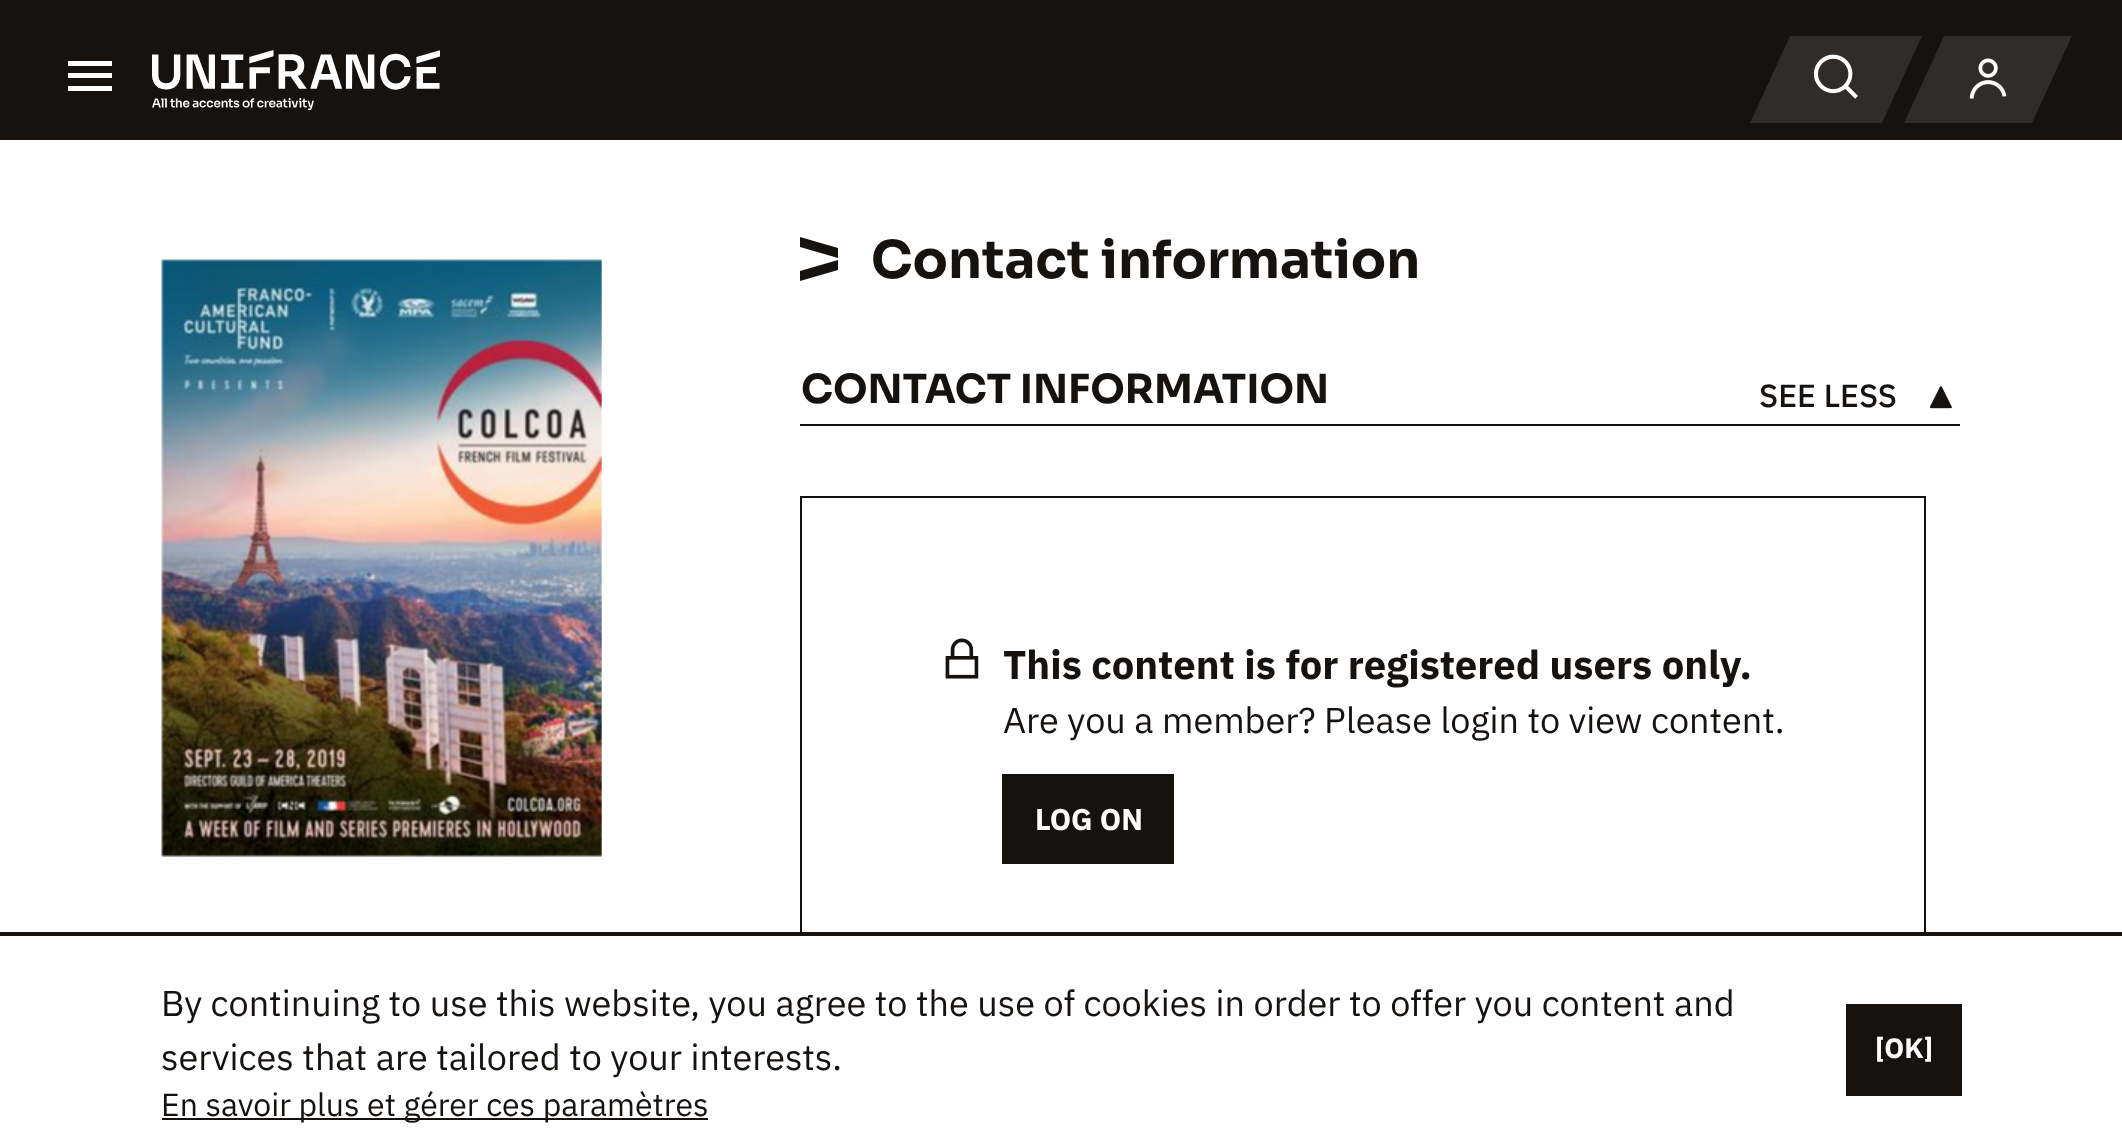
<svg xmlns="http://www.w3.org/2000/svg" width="2122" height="1143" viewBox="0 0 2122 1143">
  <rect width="100%" height="100%" fill="rgb(255,255,255)"/>
  <rect x="0" y="0" width="2122" height="140" fill="rgb(21,18,16)"/>
  <path d="M68 61H112V66H68ZM68 78V73H112V78ZM68 91V86H112V91Z" fill="rgb(255,255,255)"/>
  <image x="152" y="50" width="288" height="60" href="pic1.png"/>
  <path d="M1944 36H2072L2032 123H1904Z" fill="rgb(48,44,42)"/>
  <path d="M1790 36H1922L1882 123H1750Z" fill="rgb(47,44,42)"/>
  <image x="1813" y="54" width="45" height="45" href="pic2.png"/>
  <image x="1969" y="58" width="38" height="41" href="pic3.png"/>
  <image x="161" y="259" width="441" height="598" href="pic4.png"/>
  <path d="M800 271V281L838 270V260ZM800 237V247L838 258V248Z" fill="rgb(21,18,16)"/>
  <text x="871" y="278" font-family="Sora" font-size="52" font-weight="bold" fill="rgb(21,18,16)">Contact information</text>
  <rect x="800" y="424" width="1160" height="2" fill="rgb(21,18,16)"/>
  <text x="801" y="403" font-family="Sora" font-size="40" font-weight="bold" fill="rgb(21,18,16)">CONTACT INFORMATION</text>
  <text x="1759" y="407" font-family="IBM Plex Sans" font-size="32" font-weight="500" fill="rgb(21,18,16)">SEE LESS</text>
  <image x="1929" y="386" width="23" height="23" href="pic5.png"/>
  <rect x="801" y="497" width="1124" height="468" fill="none" stroke="rgb(21,18,16)" stroke-width="2"/>
  <image x="945" y="638" width="34" height="41" href="pic6.png"/>
  <text x="1003" y="679" font-family="IBM Plex Sans" font-size="40" font-weight="bold" fill="rgb(21,18,16)">This content is for registered users only.</text>
  <text x="1003" y="733" font-family="IBM Plex Sans" font-size="36" fill="rgb(21,18,16)">Are you a member? Please login to view content.</text>
  <rect x="1002" y="774" width="172" height="90" fill="rgb(21,18,16)"/>
  <text x="1035" y="830" font-family="'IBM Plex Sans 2'" font-size="30" font-weight="bold" fill="rgb(255,255,255)">LOG ON</text>
  <rect x="800" y="936" width="1126" height="30" fill="rgb(255,255,255)"/>
  <rect x="0" y="932" width="2122" height="4" fill="rgb(21,18,16)"/>
  <g font-family="IBM Plex Sans" font-size="36" fill="rgb(21,18,16)">
    <text>
      <tspan x="161" y="1016">By continuing to use this website, you agree to the use of cookies in order to offer you content and</tspan>
      <tspan x="161" y="1070">services that are tailored to your interests.</tspan>
    </text>
  </g>
  <rect x="162" y="1118" width="546" height="2" fill="rgb(21,18,16)"/>
  <text x="161" y="1116" font-family="IBM Plex Sans" font-size="32" fill="rgb(21,18,16)">En savoir plus et gérer ces paramètres</text>
  <rect x="1846" y="1004" width="116" height="92" fill="rgb(21,18,16)"/>
  <text x="1875" y="1058" font-family="'IBM Plex Sans 2'" font-size="28" font-weight="bold" fill="rgb(255,255,255)">[OK]</text>
</svg>
